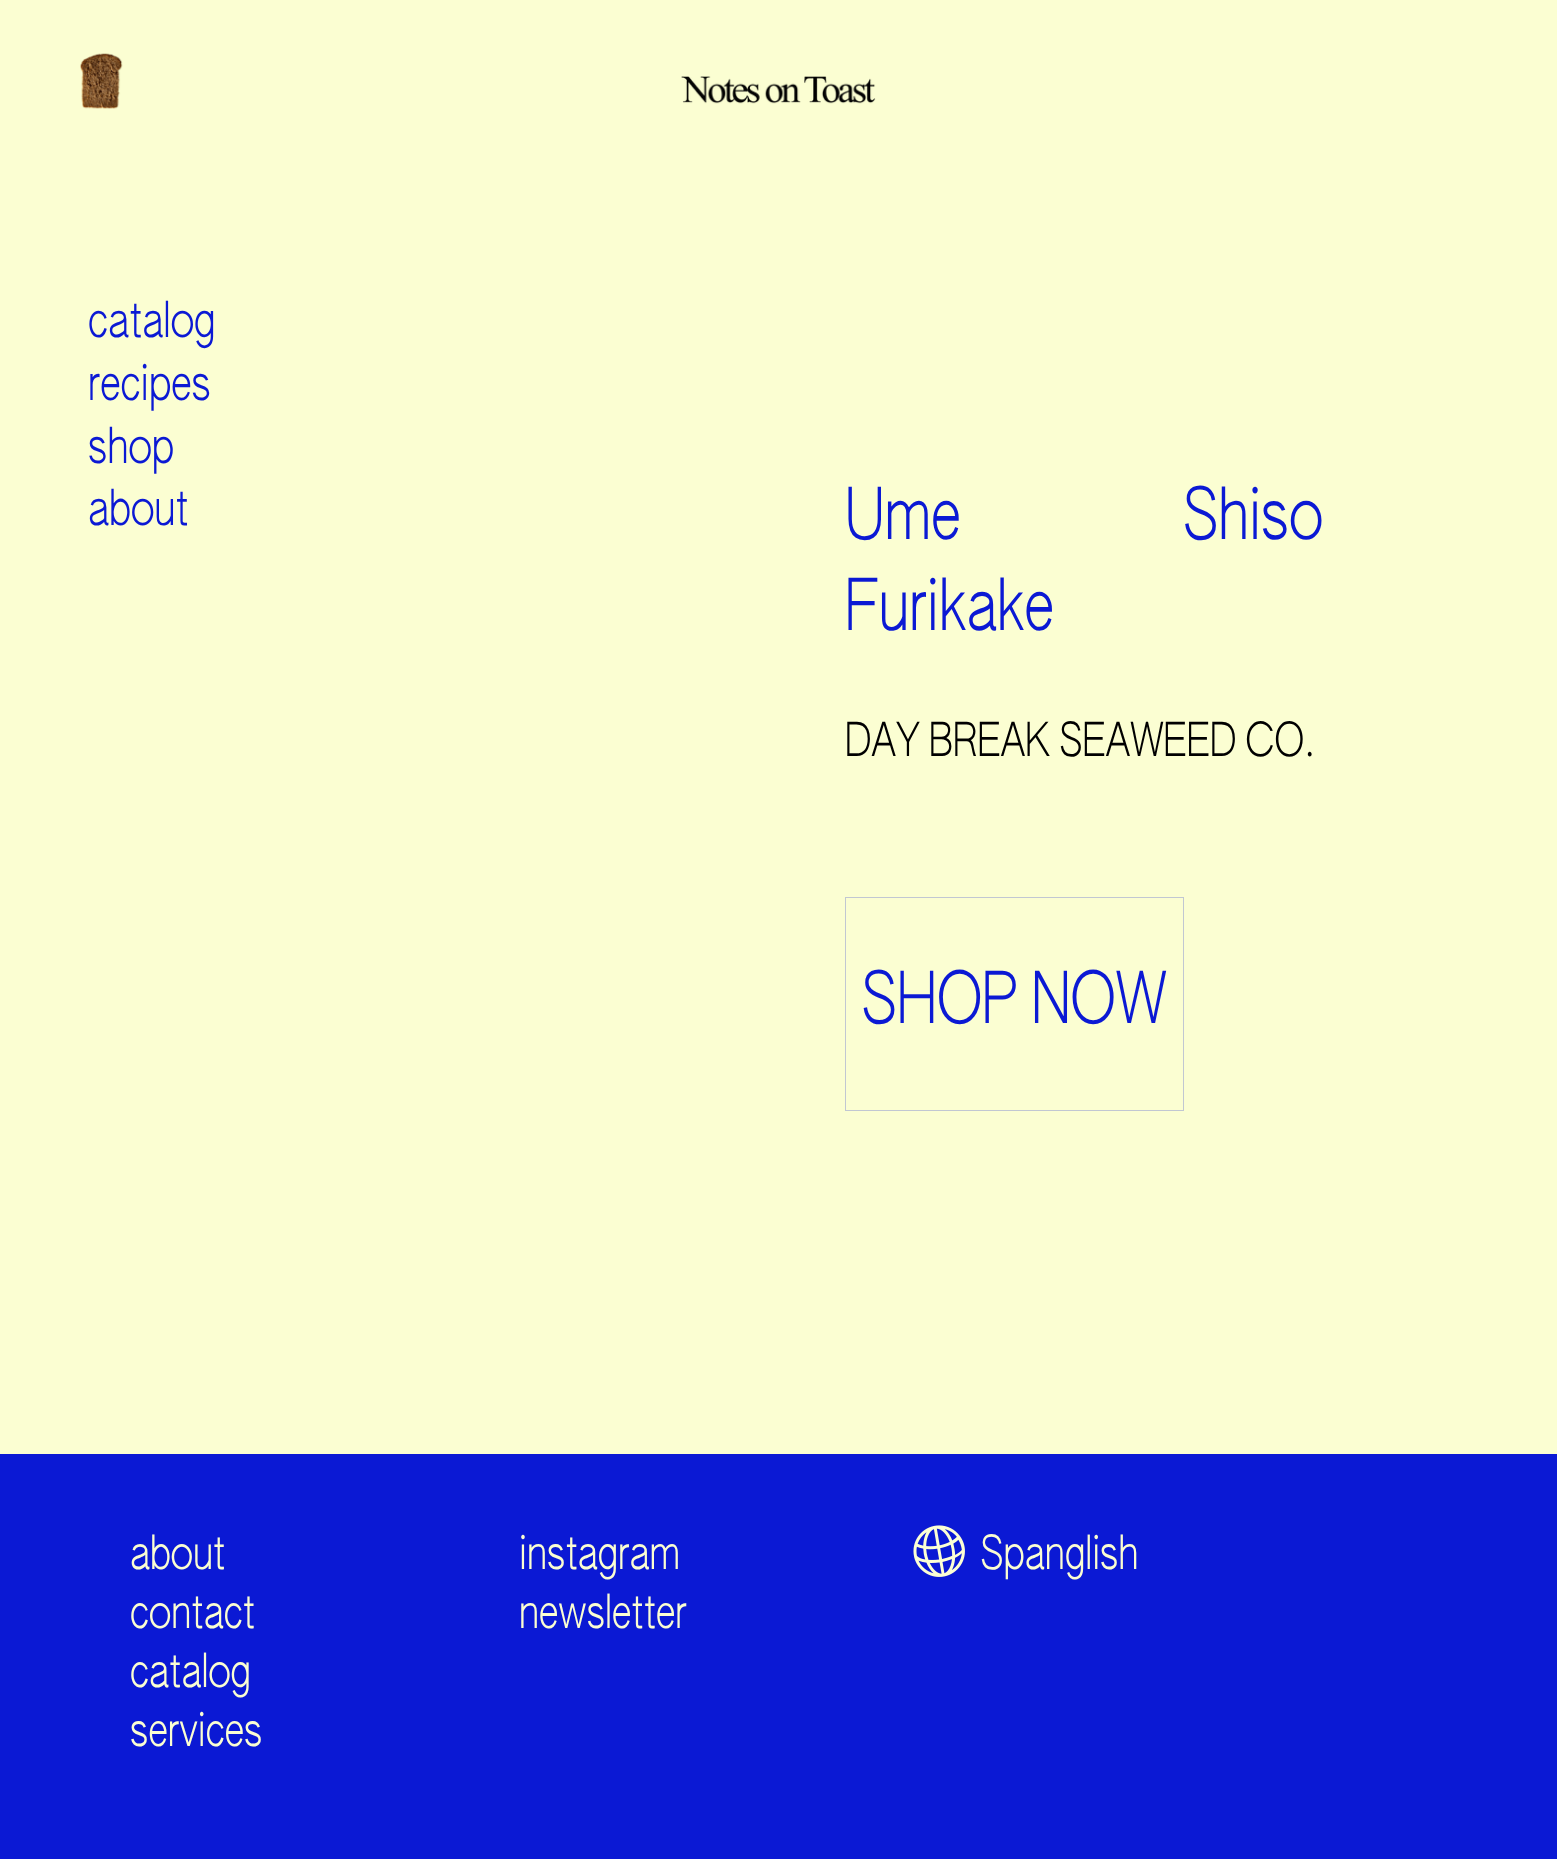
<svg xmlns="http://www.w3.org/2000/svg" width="1557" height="1859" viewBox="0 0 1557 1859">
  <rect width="100%" height="100%" fill="rgb(251,254,210)"/>
  <image x="80" y="53" width="43" height="56" href="pic1.png"/>
  <image x="681" y="76" width="195" height="28" href="pic2.png"/>
  <g font-family="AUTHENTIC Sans" font-size="48" font-weight="300" fill="rgb(11,25,212)">
    <text>
      <tspan x="88" y="337">catalog</tspan>
      <tspan x="88" y="400">recipes</tspan>
      <tspan x="88" y="463">shop</tspan>
      <tspan x="88" y="525">about</tspan>
    </text>
  </g>
  <g font-family="AUTHENTIC Sans" font-size="69.5" font-weight="300" fill="rgb(11,25,212)">
    <text>
      <tspan x="845" y="539" word-spacing="208">Ume Shiso</tspan>
      <tspan x="845" y="630">Furikake</tspan>
    </text>
  </g>
  <text x="845" y="756" font-family="AUTHENTIC Sans" font-size="45.5" font-weight="300" fill="rgb(0,0,0)">DAY BREAK SEAWEED CO.</text>
  <rect x="845.5" y="897.5" width="338" height="213" fill="none" stroke="rgb(193,199,210)"/>
  <text x="861" y="1023" font-family="AUTHENTIC Sans" font-size="69.5" font-weight="300" fill="rgb(11,25,212)">SHOP NOW</text>
  <rect x="0" y="1454" width="1557" height="405" fill="rgb(11,25,212)"/>
  <g font-family="AUTHENTIC Sans" font-size="45.5" font-weight="300" fill="rgb(251,254,210)">
    <text>
      <tspan x="130" y="1569">about</tspan>
      <tspan x="130" y="1628">contact</tspan>
      <tspan x="130" y="1687">catalog</tspan>
      <tspan x="130" y="1746">services</tspan>
    </text>
    <text>
      <tspan x="519" y="1569">instagram</tspan>
      <tspan x="519" y="1628">newsletter</tspan>
    </text>
  </g>
  <image x="913" y="1525" width="52" height="52" href="pic3.png"/>
  <text x="980" y="1569" font-family="AUTHENTIC Sans" font-size="45.5" font-weight="300" fill="rgb(251,254,210)">Spanglish</text>
</svg>
